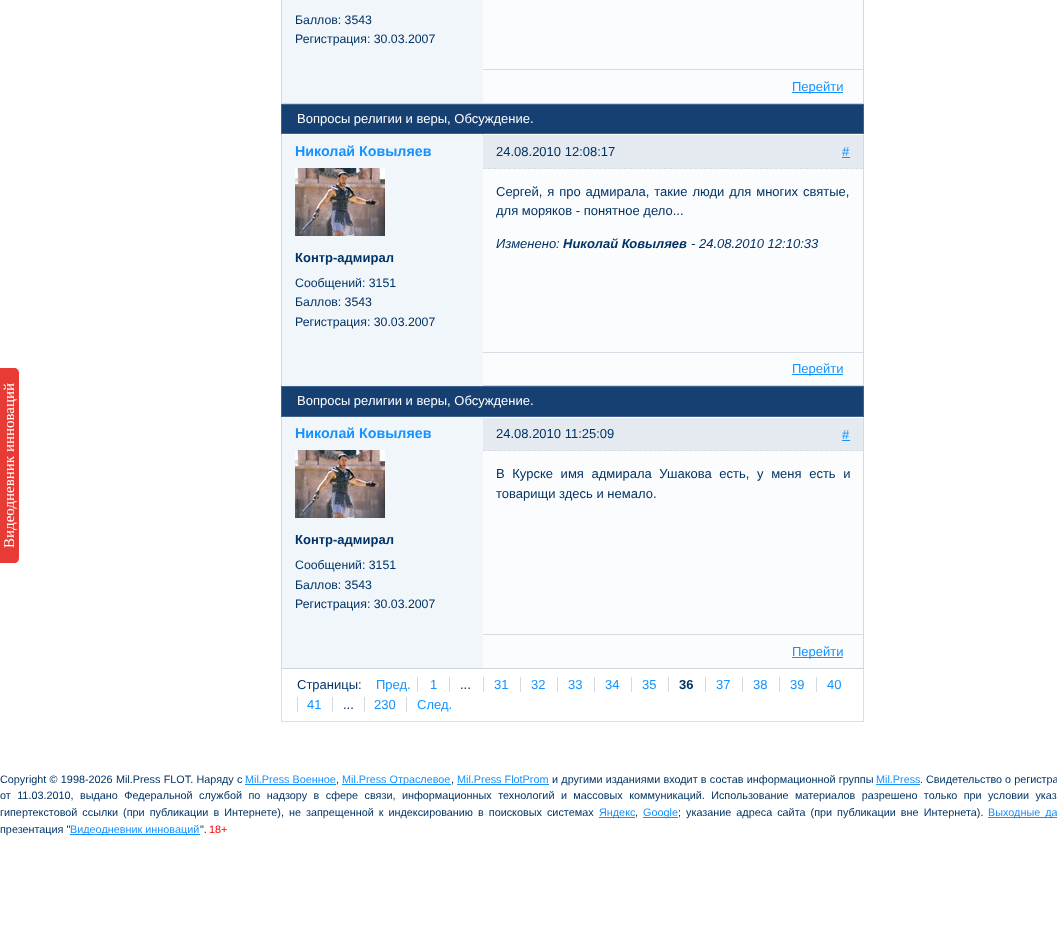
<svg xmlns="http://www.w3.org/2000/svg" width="1057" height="931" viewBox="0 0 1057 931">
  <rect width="100%" height="100%" fill="rgb(255,255,255)"/>
  <rect x="281" y="103" width="583" height="1" fill="rgb(208,211,216)"/>
  <rect x="482" y="69" width="382" height="1" fill="rgb(214,221,229)"/>
  <rect x="282" y="0" width="201" height="103" fill="rgb(241,246,250)"/>
  <g font-family="Liberation Sans" font-size="12.3" fill="rgb(0,51,102)">
    <text>
      <tspan x="295" y="24">Баллов: 3543</tspan>
      <tspan x="295" y="43">Регистрация: 30.03.2007</tspan>
    </text>
  </g>
  <rect x="483" y="0" width="380" height="69" fill="rgb(251,252,253)"/>
  <rect x="482" y="103" width="1" height="1" fill="rgb(214,221,229)"/>
  <rect x="281" y="0" width="1" height="104" fill="rgb(213,218,224)"/>
  <rect x="483" y="70" width="380" height="33" fill="rgb(251,252,253)"/>
  <rect x="863" y="0" width="1" height="104" fill="rgb(213,218,224)"/>
  <rect x="792" y="92" width="51" height="1" fill="rgb(20,146,255)"/>
  <text x="792" y="91" font-family="Liberation Sans" font-size="13" fill="rgb(20,146,255)">Перейти</text>
  <rect x="281.5" y="104.5" width="582" height="29" fill="rgb(22,63,114)" stroke="rgb(64,99,144)"/>
  <text x="297" y="123" font-family="Liberation Sans" font-size="13" fill="rgb(255,255,255)">Вопросы религии и веры, Обсуждение.</text>
  <rect x="483" y="385" width="381" height="1" fill="rgb(208,211,216)"/>
  <rect x="482" y="134" width="1" height="1" fill="rgb(214,221,229)"/>
  <rect x="482" y="352" width="382" height="1" fill="rgb(214,221,229)"/>
  <rect x="282" y="135" width="201" height="251" fill="rgb(241,246,250)"/>
  <text x="295" y="156" font-family="Liberation Sans" font-size="14.25" font-weight="bold" fill="rgb(20,146,255)">Николай Ковыляев</text>
  <image x="295" y="168" width="90" height="68" href="pic1.png"/>
  <text x="295" y="262" font-family="Liberation Sans" font-size="13" font-weight="bold" fill="rgb(0,51,102)">Контр-адмирал</text>
  <g font-family="Liberation Sans" font-size="12.3" fill="rgb(0,51,102)">
    <text>
      <tspan x="295" y="287">Cообщений: 3151</tspan>
      <tspan x="295" y="306">Баллов: 3543</tspan>
      <tspan x="295" y="326">Регистрация: 30.03.2007</tspan>
    </text>
  </g>
  <rect x="483" y="169" width="380" height="183" fill="rgb(251,252,253)"/>
  <rect x="483" y="135" width="380" height="34" fill="rgb(229,234,240)"/>
  <path d="M483 168.5H863" fill="none" stroke="rgb(214,221,229)" stroke-dasharray="3 2.03"/>
  <text x="496" y="156" font-family="Liberation Sans" font-size="13" fill="rgb(0,51,102)">24.08.2010 12:08:17</text>
  <text x="842" y="156" font-family="Liberation Sans" font-size="13" fill="rgb(20,146,255)">#</text>
  <rect x="842" y="157" width="8" height="1" fill="rgb(20,146,255)"/>
  <g font-family="Liberation Sans" font-size="13" fill="rgb(0,51,102)">
    <text>
      <tspan x="496" y="196" word-spacing="1.25">Сергей, я про адмирала, такие люди для многих святые,</tspan>
      <tspan x="496" y="215">для моряков - понятное дело...</tspan>
    </text>
  </g>
  <text x="496" y="248" font-family="Liberation Sans" font-size="13" font-style="italic" fill="rgb(0,51,102)">Изменено:</text>
  <text x="563" y="248" font-family="Liberation Sans" font-size="13" font-weight="bold" font-style="italic" fill="rgb(0,51,102)">Николай Ковыляев</text>
  <text x="691" y="248" font-family="Liberation Sans" font-size="13" font-style="italic" fill="rgb(0,51,102)">- 24.08.2010 12:10:33</text>
  <rect x="281" y="134" width="1" height="252" fill="rgb(213,218,224)"/>
  <rect x="483" y="353" width="380" height="32" fill="rgb(251,252,253)"/>
  <rect x="863" y="134" width="1" height="252" fill="rgb(213,218,224)"/>
  <rect x="792" y="374" width="51" height="1" fill="rgb(20,146,255)"/>
  <text x="792" y="373" font-family="Liberation Sans" font-size="13" fill="rgb(20,146,255)">Перейти</text>
  <rect x="281.5" y="386.5" width="582" height="30" fill="rgb(22,63,114)" stroke="rgb(64,99,144)"/>
  <text x="297" y="405" font-family="Liberation Sans" font-size="13" fill="rgb(255,255,255)">Вопросы религии и веры, Обсуждение.</text>
  <rect x="281" y="668" width="583" height="1" fill="rgb(208,211,216)"/>
  <rect x="482" y="634" width="382" height="1" fill="rgb(214,221,229)"/>
  <rect x="282" y="417" width="201" height="251" fill="rgb(241,246,250)"/>
  <text x="295" y="438" font-family="Liberation Sans" font-size="14.25" font-weight="bold" fill="rgb(20,146,255)">Николай Ковыляев</text>
  <image x="295" y="450" width="90" height="68" href="pic1.png"/>
  <text x="295" y="544" font-family="Liberation Sans" font-size="13" font-weight="bold" fill="rgb(0,51,102)">Контр-адмирал</text>
  <g font-family="Liberation Sans" font-size="12.3" fill="rgb(0,51,102)">
    <text>
      <tspan x="295" y="569">Cообщений: 3151</tspan>
      <tspan x="295" y="589">Баллов: 3543</tspan>
      <tspan x="295" y="608">Регистрация: 30.03.2007</tspan>
    </text>
  </g>
  <rect x="483" y="451" width="380" height="183" fill="rgb(251,252,253)"/>
  <rect x="483" y="418" width="380" height="33" fill="rgb(229,234,240)"/>
  <path d="M483 450.5H863" fill="none" stroke="rgb(214,221,229)" stroke-dasharray="3 2.03"/>
  <text x="496" y="438" font-family="Liberation Sans" font-size="13" fill="rgb(0,51,102)">24.08.2010 11:25:09</text>
  <text x="842" y="439" font-family="Liberation Sans" font-size="13" fill="rgb(20,146,255)">#</text>
  <rect x="842" y="440" width="8" height="1" fill="rgb(20,146,255)"/>
  <g font-family="Liberation Sans" font-size="13" fill="rgb(0,51,102)">
    <text>
      <tspan x="496" y="478" word-spacing="4">В Курске имя адмирала Ушакова есть, у меня есть и</tspan>
      <tspan x="496" y="498">товарищи здесь и немало.</tspan>
    </text>
  </g>
  <rect x="482" y="668" width="1" height="1" fill="rgb(214,221,229)"/>
  <rect x="281" y="417" width="1" height="252" fill="rgb(213,218,224)"/>
  <rect x="483" y="635" width="380" height="33" fill="rgb(251,252,253)"/>
  <rect x="863" y="417" width="1" height="252" fill="rgb(213,218,224)"/>
  <rect x="792" y="657" width="51" height="1" fill="rgb(20,146,255)"/>
  <text x="792" y="656" font-family="Liberation Sans" font-size="13" fill="rgb(20,146,255)">Перейти</text>
  <rect x="863" y="669" width="1" height="53" fill="rgb(218,224,231)"/>
  <rect x="281" y="721" width="583" height="1" fill="rgb(218,224,231)"/>
  <rect x="281" y="669" width="1" height="53" fill="rgb(218,224,231)"/>
  <text x="297" y="689" font-family="Liberation Sans" font-size="13" fill="rgb(0,51,102)">Страницы:</text>
  <text x="376" y="689" font-family="Liberation Sans" font-size="13" fill="rgb(20,146,255)">Пред.</text>
  <rect x="417" y="677" width="1" height="15" fill="rgb(212,218,227)"/>
  <text x="430" y="689" font-family="Liberation Sans" font-size="13" fill="rgb(20,146,255)">1</text>
  <text x="460" y="689" font-family="Liberation Sans" font-size="13" fill="rgb(0,51,102)">...</text>
  <rect x="449" y="677" width="1" height="15" fill="rgb(212,218,227)"/>
  <text x="494" y="689" font-family="Liberation Sans" font-size="13" fill="rgb(20,146,255)">31</text>
  <rect x="483" y="677" width="1" height="15" fill="rgb(212,218,227)"/>
  <text x="531" y="689" font-family="Liberation Sans" font-size="13" fill="rgb(20,146,255)">32</text>
  <rect x="520" y="677" width="1" height="15" fill="rgb(212,218,227)"/>
  <text x="568" y="689" font-family="Liberation Sans" font-size="13" fill="rgb(20,146,255)">33</text>
  <rect x="557" y="677" width="1" height="15" fill="rgb(212,218,227)"/>
  <text x="605" y="689" font-family="Liberation Sans" font-size="13" fill="rgb(20,146,255)">34</text>
  <rect x="594" y="677" width="1" height="15" fill="rgb(212,218,227)"/>
  <text x="642" y="689" font-family="Liberation Sans" font-size="13" fill="rgb(20,146,255)">35</text>
  <rect x="631" y="677" width="1" height="15" fill="rgb(212,218,227)"/>
  <text x="679" y="689" font-family="Liberation Sans" font-size="13" font-weight="bold" fill="rgb(0,51,102)">36</text>
  <rect x="668" y="677" width="1" height="15" fill="rgb(212,218,227)"/>
  <text x="716" y="689" font-family="Liberation Sans" font-size="13" fill="rgb(20,146,255)">37</text>
  <rect x="705" y="677" width="1" height="15" fill="rgb(212,218,227)"/>
  <text x="753" y="689" font-family="Liberation Sans" font-size="13" fill="rgb(20,146,255)">38</text>
  <rect x="742" y="677" width="1" height="15" fill="rgb(212,218,227)"/>
  <text x="790" y="689" font-family="Liberation Sans" font-size="13" fill="rgb(20,146,255)">39</text>
  <rect x="779" y="677" width="1" height="15" fill="rgb(212,218,227)"/>
  <text x="827" y="689" font-family="Liberation Sans" font-size="13" fill="rgb(20,146,255)">40</text>
  <rect x="816" y="677" width="1" height="15" fill="rgb(212,218,227)"/>
  <text x="307" y="709" font-family="Liberation Sans" font-size="13" fill="rgb(20,146,255)">41</text>
  <rect x="297" y="697" width="1" height="15" fill="rgb(212,218,227)"/>
  <text x="343" y="709" font-family="Liberation Sans" font-size="13" fill="rgb(0,51,102)">...</text>
  <rect x="332" y="697" width="1" height="15" fill="rgb(212,218,227)"/>
  <text x="374" y="709" font-family="Liberation Sans" font-size="13" fill="rgb(20,146,255)">230</text>
  <rect x="364" y="697" width="1" height="15" fill="rgb(212,218,227)"/>
  <text x="417" y="709" font-family="Liberation Sans" font-size="13" fill="rgb(20,146,255)">След.</text>
  <rect x="406" y="697" width="1" height="15" fill="rgb(212,218,227)"/>
  <text x="0" y="783" word-spacing="0.25" font-family="Liberation Sans" font-size="10.83" fill="rgb(0,51,102)">Copyright © 1998-2026 Mil.Press FLOT. Наряду с</text>
  <text x="245" y="783" font-family="Liberation Sans" font-size="10.83" fill="rgb(20,146,255)">Mil.Press Военное</text>
  <text x="336" y="783" font-family="Liberation Sans" font-size="10.83" fill="rgb(0,51,102)">,</text>
  <rect x="245" y="784" width="91" height="1" fill="rgb(20,146,255)"/>
  <rect x="342" y="784" width="109" height="1" fill="rgb(20,146,255)"/>
  <text x="342" y="783" font-family="Liberation Sans" font-size="10.83" fill="rgb(20,146,255)">Mil.Press Отраслевое</text>
  <text x="451" y="783" font-family="Liberation Sans" font-size="10.83" fill="rgb(0,51,102)">,</text>
  <rect x="457" y="784" width="92" height="1" fill="rgb(20,146,255)"/>
  <text x="457" y="783" font-family="Liberation Sans" font-size="10.83" fill="rgb(20,146,255)">Mil.Press FlotProm</text>
  <text x="552" y="783" word-spacing="0.25" font-family="Liberation Sans" font-size="10.83" fill="rgb(0,51,102)">и другими изданиями входит в состав информационной группы</text>
  <text x="876" y="783" font-family="Liberation Sans" font-size="10.83" fill="rgb(20,146,255)">Mil.Press</text>
  <text x="920" y="783" font-family="Liberation Sans" font-size="10.83" fill="rgb(0,51,102)">. Свидетельство о регистра</text>
  <rect x="876" y="784" width="44" height="1" fill="rgb(20,146,255)"/>
  <g font-family="Liberation Sans" font-size="10.83" fill="rgb(0,51,102)">
    <text>
      <tspan x="0" y="799" word-spacing="3.4">от 11.03.2010, выдано Федеральной службой по надзору в сфере связи, информационных технологий и массовых коммуникаций. Использование материалов разрешено только при условии указ</tspan>
      <tspan x="0" y="816" word-spacing="2">гипертекстовой ссылки (при публикации в Интернете), не запрещенной к индексированию в поисковых системах</tspan>
    </text>
  </g>
  <rect x="599" y="817" width="36" height="1" fill="rgb(20,146,255)"/>
  <text x="599" y="816" font-family="Liberation Sans" font-size="10.83" fill="rgb(20,146,255)">Яндекс</text>
  <text x="635" y="816" font-family="Liberation Sans" font-size="10.83" fill="rgb(0,51,102)">,</text>
  <rect x="643" y="817" width="35" height="1" fill="rgb(20,146,255)"/>
  <text x="643" y="816" font-family="Liberation Sans" font-size="10.83" fill="rgb(20,146,255)">Google</text>
  <text x="678" y="816" word-spacing="2" font-family="Liberation Sans" font-size="10.83" fill="rgb(0,51,102)">; указание адреса сайта (при публикации вне Интернета).</text>
  <rect x="988" y="817" width="69" height="1" fill="rgb(20,146,255)"/>
  <text x="988" y="816" word-spacing="2" font-family="Liberation Sans" font-size="10.83" fill="rgb(20,146,255)">Выходные да</text>
  <text x="0" y="833" font-family="Liberation Sans" font-size="10.83" fill="rgb(0,51,102)">презентация "</text>
  <rect x="70" y="834" width="130" height="1" fill="rgb(20,146,255)"/>
  <text x="70" y="833" font-family="Liberation Sans" font-size="10.83" fill="rgb(20,146,255)">Видеодневник инноваций</text>
  <text x="200" y="833" font-family="Liberation Sans" font-size="10.83" fill="rgb(0,51,102)">".</text>
  <text x="209" y="833" font-family="Liberation Sans" font-size="10.83" fill="rgb(255,0,0)">18+</text>
  <path d="M0 563V368H14C17 368 19 370 19 373V558C19 561 17 563 14 563Z" fill="rgb(232,59,53)"/>
  <text x="14" y="548" transform="rotate(-90 14 548)" font-family="Liberation Serif" font-size="15" fill="rgb(255,255,255)">Видеодневник инноваций</text>
</svg>
